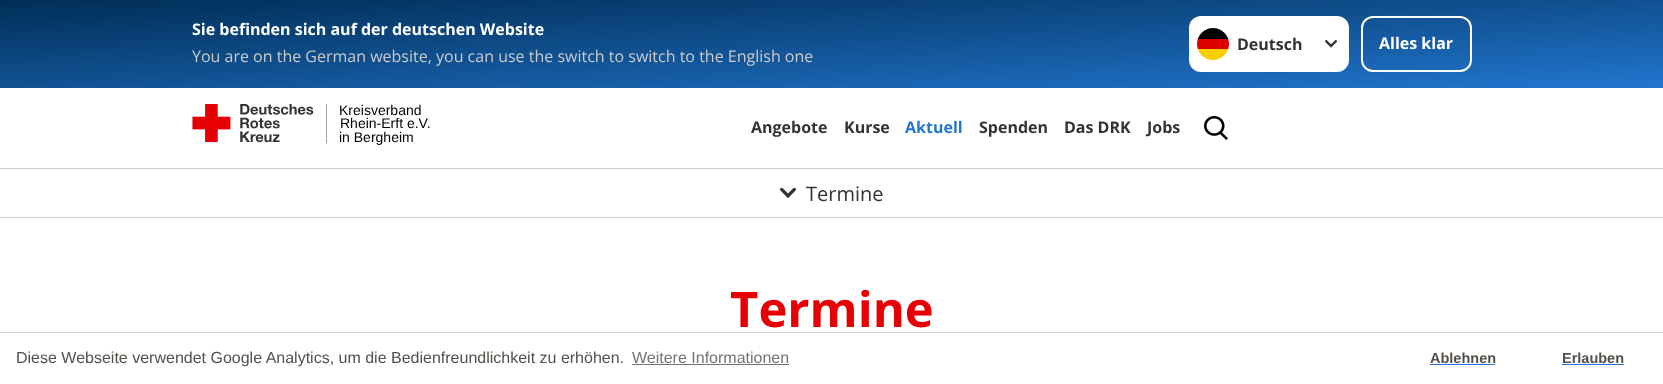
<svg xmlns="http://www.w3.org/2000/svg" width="1663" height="384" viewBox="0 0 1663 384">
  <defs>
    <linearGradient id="g1" gradientUnits="userSpaceOnUse" x1="827" y1="-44" x2="836" y2="132"><stop offset="0" stop-color="rgb(0,45,85)"/><stop offset="1" stop-color="rgb(34,118,208)"/></linearGradient>
    <clipPath id="clip1"><rect x="1197" y="28" width="32" height="32" rx="16"/></clipPath>
  </defs>
  <rect width="100%" height="100%" fill="rgb(255,255,255)"/>
  <rect x="0" y="0" width="1663" height="88" fill="url(#g1)"/>
  <text x="192" y="35" font-family="Open Sans" font-size="16" font-weight="bold" fill="rgb(255,255,255)">Sie befinden sich auf der deutschen Website</text>
  <text x="192" y="62" font-family="Open Sans" font-size="16" fill="rgb(203,203,203)">You are on the German website, you can use the switch to switch to the English one</text>
  <rect x="1189" y="16" width="160" height="56" rx="12" fill="rgb(255,255,255)"/>
  <g clip-path="url(#clip1)">
    <rect x="1197" y="49" width="32" height="11" fill="rgb(255,206,0)"/>
    <rect x="1197" y="28" width="32" height="11" fill="rgb(0,0,0)"/>
    <rect x="1197" y="39" width="32" height="10" fill="rgb(221,0,0)"/>
  </g>
  <image x="1325" y="40" width="12" height="8" href="pic1.png"/>
  <text x="1237" y="50" font-family="Open Sans" font-size="16" font-weight="bold" fill="rgb(51,51,51)">Deutsch</text>
  <rect x="1362" y="17" width="109" height="54" rx="11" fill="none" stroke="rgb(255,255,255)" stroke-width="2"/>
  <text x="1379" y="49" font-family="Open Sans" font-size="16" font-weight="bold" fill="rgb(255,255,255)">Alles klar</text>
  <rect x="0" y="168" width="1663" height="1" fill="rgb(203,203,203)"/>
  <image x="192" y="104" width="135" height="40" href="pic2.png"/>
  <g font-family="Liberation Sans" font-size="14" fill="rgb(0,0,0)">
    <text x="339" y="115">Kreisverband</text>
    <text x="340" y="128">Rhein-Erft e.V.</text>
    <text x="339" y="142">in Bergheim</text>
  </g>
  <g font-family="Open Sans" font-size="16" font-weight="bold" fill="rgb(51,51,51)">
    <text x="751" y="133">Angebote</text>
    <text x="844" y="133">Kurse</text>
  </g>
  <text x="905" y="133" font-family="Open Sans" font-size="16" font-weight="bold" fill="rgb(34,118,208)">Aktuell</text>
  <g font-family="Open Sans" font-size="16" font-weight="bold" fill="rgb(51,51,51)">
    <text x="979" y="133">Spenden</text>
    <text x="1064" y="133">Das DRK</text>
    <text x="1147" y="133">Jobs</text>
  </g>
  <image x="1204" y="116" width="24" height="24" href="pic3.png"/>
  <rect x="0" y="217" width="1663" height="1" fill="rgb(203,203,203)"/>
  <image x="780" y="188" width="16" height="11" href="pic4.png"/>
  <text x="806" y="201" font-family="Open Sans" font-size="20" fill="rgb(51,51,51)">Termine</text>
  <text x="730" y="327" font-family="Open Sans" font-size="49" font-weight="bold" fill="rgb(230,0,5)">Termine</text>
  <rect x="0" y="332" width="1663" height="1" fill="rgb(211,213,217)"/>
  <text x="16" y="363" font-family="Liberation Sans" font-size="16" fill="rgb(85,79,74)">Diese Webseite verwendet Google Analytics, um die Bedienfreundlichkeit zu erhöhen.</text>
  <text x="632" y="363" font-family="Liberation Sans" font-size="16" fill="rgb(119,114,110)">Weitere Informationen</text>
  <rect x="632" y="364" width="157" height="1" fill="rgb(119,114,110)"/>
  <text x="1430" y="363" font-family="Liberation Sans" font-size="14.5" font-weight="bold" fill="rgb(85,79,74)">Ablehnen</text>
  <rect x="1430" y="364" width="65" height="1" fill="rgb(34,118,208)"/>
  <text x="1562" y="363" font-family="Liberation Sans" font-size="14.5" font-weight="bold" fill="rgb(85,79,74)">Erlauben</text>
  <rect x="1562" y="364" width="62" height="1" fill="rgb(34,118,208)"/>
</svg>
